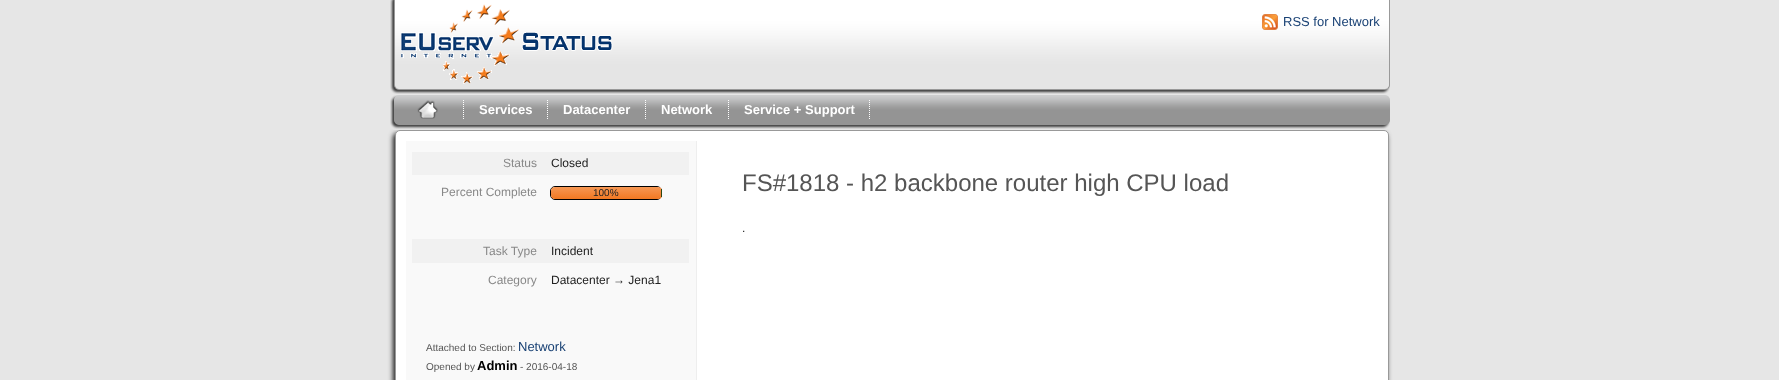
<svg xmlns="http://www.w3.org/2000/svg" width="1779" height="380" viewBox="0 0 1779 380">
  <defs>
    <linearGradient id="g1" gradientUnits="userSpaceOnUse" x1="606" y1="187" x2="606" y2="199"><stop offset="0" stop-color="rgb(246,151,84)"/><stop offset="1" stop-color="rgb(242,120,34)"/></linearGradient>
  </defs>
  <rect width="100%" height="100%" fill="rgb(230,230,230)"/>
  <image x="390" y="0" width="1000" height="94" href="pic1.png"/>
  <image x="401" y="4" width="212" height="80" href="pic2.png"/>
  <image x="1262" y="14" width="16" height="16" href="pic3.png"/>
  <text x="1283" y="26" font-family="Liberation Sans" font-size="13" fill="rgb(25,65,116)">RSS for Network</text>
  <rect x="393" y="133" width="994" height="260" rx="5" fill="rgb(29,29,29)" filter="blur(2.5px)"/>
  <rect x="393" y="128" width="994" height="2" fill="rgb(229,229,229)"/>
  <image x="390" y="95" width="1000" height="34" href="pic4.png"/>
  <path d="M463.5 100V120" fill="none" stroke="rgb(255,255,255)" stroke-dasharray="1 1"/>
  <image x="417" y="100" width="21" height="19" href="pic5.png"/>
  <path d="M547.5 100V120" fill="none" stroke="rgb(255,255,255)" stroke-dasharray="1 1"/>
  <text x="479" y="114" font-family="Liberation Sans" font-size="13" font-weight="bold" fill="rgb(255,255,255)">Services</text>
  <path d="M645.5 100V120" fill="none" stroke="rgb(255,255,255)" stroke-dasharray="1 1"/>
  <text x="563" y="114" font-family="Liberation Sans" font-size="13" font-weight="bold" fill="rgb(255,255,255)">Datacenter</text>
  <path d="M728.5 100V120" fill="none" stroke="rgb(255,255,255)" stroke-dasharray="1 1"/>
  <text x="661" y="114" font-family="Liberation Sans" font-size="13" font-weight="bold" fill="rgb(255,255,255)">Network</text>
  <path d="M869.5 100V120" fill="none" stroke="rgb(255,255,255)" stroke-dasharray="1 1"/>
  <text x="744" y="114" font-family="Liberation Sans" font-size="13" font-weight="bold" fill="rgb(255,255,255)">Service + Support</text>
  <rect x="395.5" y="130.5" width="993" height="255" rx="4.5" fill="rgb(255,255,255)" stroke="rgb(153,153,153)"/>
  <rect x="406" y="141" width="290" height="239" fill="rgb(249,249,249)"/>
  <rect x="696" y="141" width="1" height="239" fill="rgb(238,238,238)"/>
  <rect x="412" y="152" width="277" height="23" fill="rgb(241,241,241)"/>
  <text x="503" y="167" font-family="Liberation Sans" font-size="12" fill="rgb(136,136,136)">Status</text>
  <text x="551" y="167" font-family="Liberation Sans" font-size="12" fill="rgb(34,34,34)">Closed</text>
  <text x="441" y="196" font-family="Liberation Sans" font-size="12" fill="rgb(136,136,136)">Percent Complete</text>
  <rect x="550.5" y="186.5" width="111" height="13" rx="4.5" fill="none" stroke="rgb(0,0,0)"/>
  <rect x="551" y="187" width="111" height="12" rx="4" fill="url(#g1)"/>
  <rect x="661" y="189" width="1" height="8" fill="rgb(45,71,19)"/>
  <text x="593" y="196" font-family="Liberation Sans" font-size="10" fill="rgb(34,34,34)">100%</text>
  <rect x="412" y="239" width="277" height="24" fill="rgb(241,241,241)"/>
  <text x="483" y="255" font-family="Liberation Sans" font-size="12" fill="rgb(136,136,136)">Task Type</text>
  <text x="551" y="255" font-family="Liberation Sans" font-size="12" fill="rgb(34,34,34)">Incident</text>
  <text x="488" y="284" font-family="Liberation Sans" font-size="12" fill="rgb(136,136,136)">Category</text>
  <text x="551" y="284" font-family="Liberation Sans" font-size="12" fill="rgb(34,34,34)">Datacenter → Jena1</text>
  <text x="426" y="351" font-family="Liberation Sans" font-size="10" fill="rgb(85,85,85)">Attached to Section:</text>
  <text x="518" y="351" font-family="Liberation Sans" font-size="13" fill="rgb(25,65,116)">Network</text>
  <text x="426" y="370" font-family="Liberation Sans" font-size="10" fill="rgb(85,85,85)">Opened by</text>
  <text x="477" y="370" font-family="Liberation Sans" font-size="13" font-weight="bold" fill="rgb(0,0,0)">Admin</text>
  <text x="520" y="370" font-family="Liberation Sans" font-size="10" fill="rgb(85,85,85)">- 2016-04-18</text>
  <text x="742" y="191" font-family="Liberation Sans" font-size="24" fill="rgb(85,85,85)">FS#1818 - h2 backbone router high CPU load</text>
  <text x="742" y="232" font-family="Liberation Sans" font-size="12" fill="rgb(34,34,34)">.</text>
</svg>
